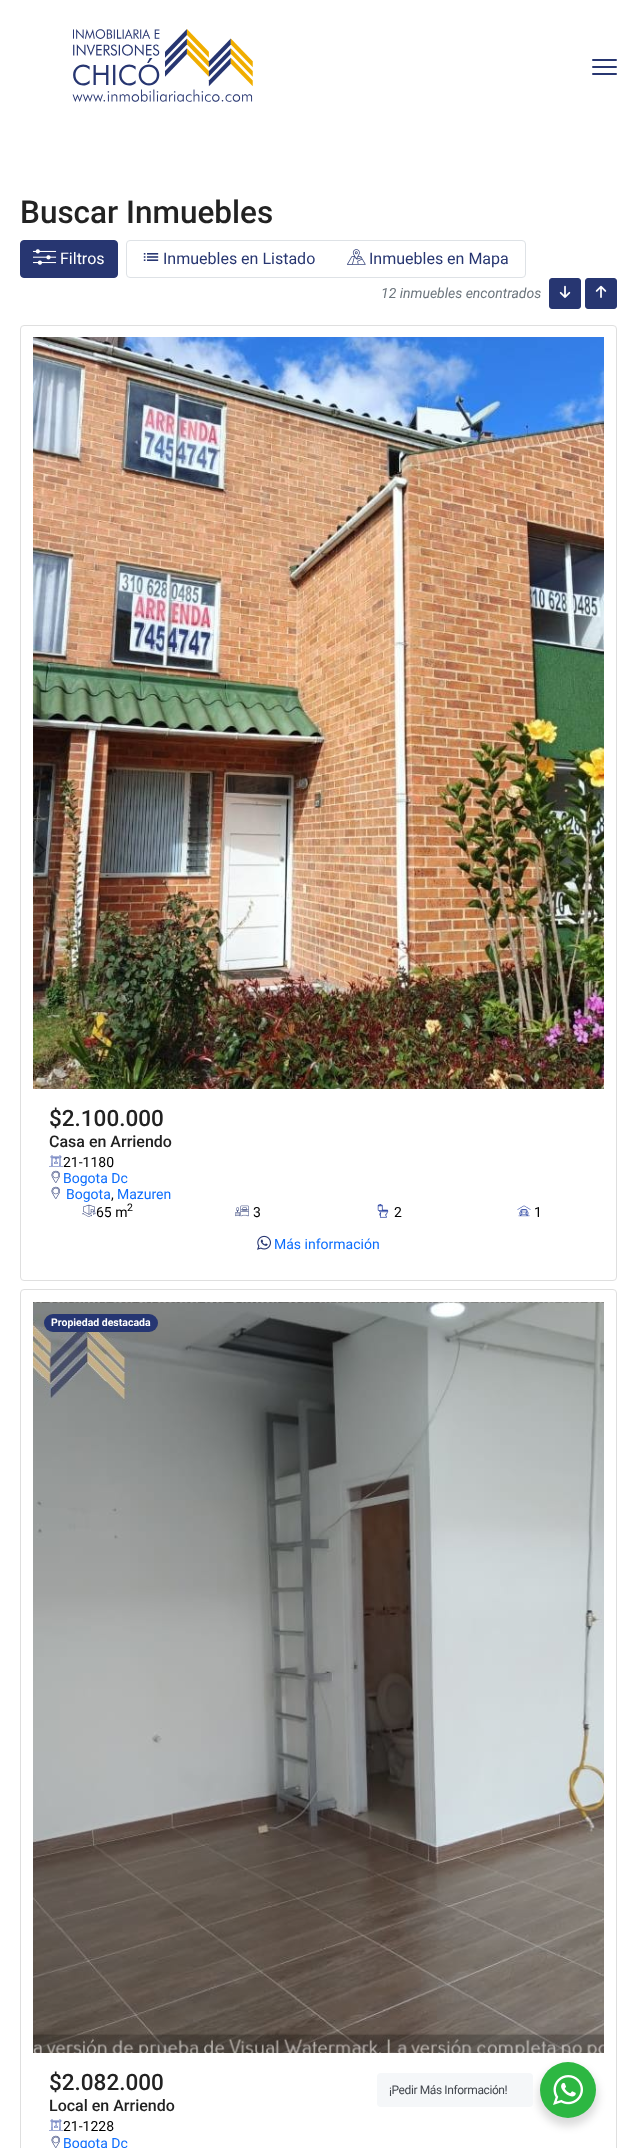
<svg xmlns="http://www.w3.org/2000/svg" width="637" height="2148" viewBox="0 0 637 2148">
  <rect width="100%" height="100%" fill="rgb(255,255,255)"/>
  <image x="72" y="29" width="181" height="73" href="pic1.png"/>
  <rect x="592" y="59" width="25" height="2" rx="1" fill="rgb(39,54,113)"/>
  <rect x="592" y="66" width="25" height="2" rx="1" fill="rgb(39,54,113)"/>
  <rect x="592" y="73" width="25" height="2" rx="1" fill="rgb(39,54,113)"/>
  <text x="20" y="223" font-family="Roboto" font-size="31.5" font-weight="500" fill="rgb(34,34,34)">Buscar Inmuebles</text>
  <rect x="20.5" y="240.5" width="97" height="37" rx="3.5" fill="rgb(39,54,113)" stroke="rgb(39,54,113)"/>
  <image x="33" y="249" width="24" height="16" href="pic2.png"/>
  <text x="60" y="264" font-family="Roboto" font-size="16" fill="rgb(255,255,255)">Filtros</text>
  <rect x="126.5" y="240.5" width="399" height="37" rx="3.5" fill="none" stroke="rgb(222,226,230)"/>
  <image x="143" y="253" width="16" height="8" href="pic3.png"/>
  <text x="163" y="264" font-family="Roboto" font-size="16" fill="rgb(39,54,113)">Inmuebles en Listado</text>
  <image x="347" y="249" width="19" height="16" href="pic4.png"/>
  <text x="369" y="264" font-family="Roboto" font-size="16" fill="rgb(39,54,113)">Inmuebles en Mapa</text>
  <text x="381" y="298" font-family="Roboto" font-size="14" font-style="italic" fill="rgb(108,117,125)">12 inmuebles encontrados</text>
  <rect x="549.5" y="278.5" width="31" height="30" rx="2.5" fill="rgb(39,54,113)" stroke="rgb(39,54,113)"/>
  <image x="559" y="285" width="12" height="13" href="pic5.png"/>
  <rect x="585.5" y="278.5" width="31" height="30" rx="2.5" fill="rgb(39,54,113)" stroke="rgb(39,54,113)"/>
  <image x="595" y="285" width="12" height="13" href="pic6.png"/>
  <rect x="20.5" y="325.5" width="596" height="955" rx="3.5" fill="none" stroke="rgb(223,223,223)"/>
  <image x="33" y="337" width="571" height="752" href="pic7.png"/>
  <text x="49" y="1126" font-family="Roboto" font-size="22.5" font-weight="500" fill="rgb(34,34,34)">$2.100.000</text>
  <text x="49" y="1147" font-family="Roboto" font-size="16" font-weight="500" fill="rgb(34,34,34)">Casa en Arriendo</text>
  <image x="49" y="1155" width="14" height="12" href="pic8.png"/>
  <text x="63" y="1167" font-family="Roboto" font-size="14" fill="rgb(0,0,0)">21-1180</text>
  <image x="51" y="1170" width="9" height="13" href="pic9.png"/>
  <text x="63" y="1183" font-family="Roboto" font-size="14" fill="rgb(13,110,253)">Bogota Dc</text>
  <image x="51" y="1186" width="9" height="13" href="pic9.png"/>
  <text x="66" y="1199" font-family="Roboto" font-size="14" fill="rgb(13,110,253)">Bogota</text>
  <text x="111" y="1199" font-family="Roboto" font-size="14" fill="rgb(0,0,0)">,</text>
  <text x="117" y="1199" font-family="Roboto" font-size="14" fill="rgb(13,110,253)">Mazuren</text>
  <image x="82" y="1204" width="14" height="13" href="pic10.png"/>
  <text x="96" y="1217" font-family="Roboto" font-size="14" fill="rgb(0,0,0)">65 m</text>
  <text x="127" y="1211" font-family="Roboto" font-size="10.5" fill="rgb(0,0,0)">2</text>
  <image x="235" y="1205" width="14" height="12" href="pic11.png"/>
  <text x="253" y="1217" font-family="Roboto" font-size="14" fill="rgb(0,0,0)">3</text>
  <image x="377" y="1204" width="12" height="14" href="pic12.png"/>
  <text x="394" y="1217" font-family="Roboto" font-size="14" fill="rgb(0,0,0)">2</text>
  <image x="517" y="1205" width="14" height="12" href="pic13.png"/>
  <text x="534" y="1217" font-family="Roboto" font-size="14" fill="rgb(0,0,0)">1</text>
  <image x="257" y="1235" width="14" height="15" href="pic14.png"/>
  <text x="274" y="1249" font-family="Roboto" font-size="14" fill="rgb(13,110,253)">Más información</text>
  <rect x="20.5" y="1289.5" width="596" height="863" rx="3.5" fill="none" stroke="rgb(223,223,223)"/>
  <image x="33" y="1302" width="571" height="751" href="pic15.png"/>
  <rect x="44" y="1314" width="114" height="18" rx="9" fill="rgb(38,54,114)"/>
  <text x="51" y="1326" font-family="Roboto" font-size="10.5" font-weight="bold" fill="rgb(255,255,255)">Propiedad destacada</text>
  <text x="49" y="2090" font-family="Roboto" font-size="22.5" font-weight="500" fill="rgb(34,34,34)">$2.082.000</text>
  <text x="49" y="2111" font-family="Roboto" font-size="16" font-weight="500" fill="rgb(34,34,34)">Local en Arriendo</text>
  <image x="49" y="2119" width="14" height="12" href="pic8.png"/>
  <text x="63" y="2131" font-family="Roboto" font-size="14" fill="rgb(0,0,0)">21-1228</text>
  <image x="51" y="2135" width="9" height="13" href="pic9.png"/>
  <text x="63" y="2148" font-family="Roboto" font-size="14" fill="rgb(13,110,253)">Bogota Dc</text>
  <rect x="538" y="2066" width="60" height="60" rx="30" fill="rgba(0,0,0,0.14)" filter="blur(4px)"/>
  <rect x="377" y="2073" width="156" height="34" rx="4" fill="rgb(245,247,249)"/>
  <text x="389" y="2094" font-family="Roboto" font-size="12" letter-spacing="-0.4" fill="rgb(67,71,78)">¡Pedir Más Información!</text>
  <circle cx="568" cy="2090" r="28" fill="rgb(45,183,66)"/>
  <image x="553" y="2075" width="30" height="30" href="pic16.png"/>
</svg>
